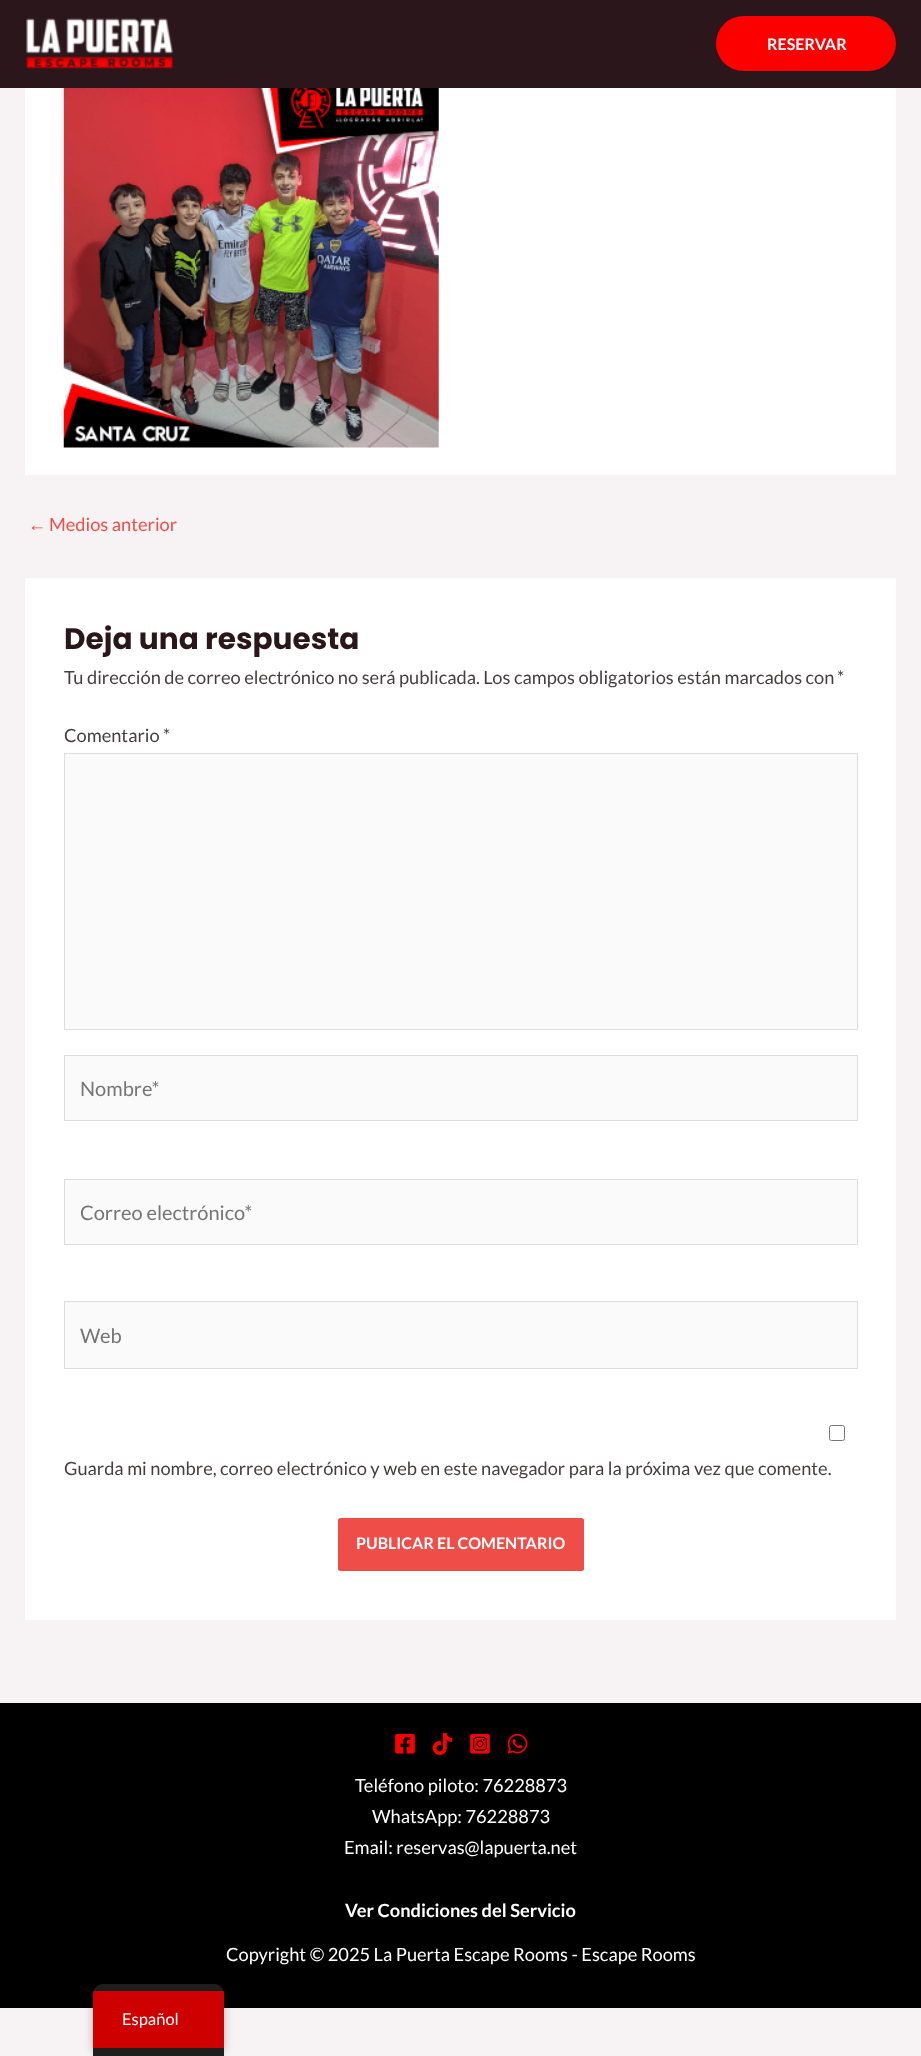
<svg xmlns="http://www.w3.org/2000/svg" width="921" height="2056" viewBox="0 0 921 2056">
  <defs>
    <clipPath id="clip1"><path d="M103 1984H214C219.5 1984 224 1988.5 224 1994V2056H93V1994C93 1988.5 97.5 1984 103 1984Z"/></clipPath>
  </defs>
  <rect width="100%" height="100%" fill="rgb(247,243,245)"/>
  <rect x="0" y="0" width="921" height="88" fill="rgb(43,22,27)"/>
  <image x="26" y="18" width="147" height="51" href="pic1.png"/>
  <rect x="716" y="16" width="180" height="55" rx="27.5" fill="rgb(252,0,0)"/>
  <text x="767" y="50" font-family="Lato" font-size="16" font-weight="bold" fill="rgb(255,255,255)">RESERVAR</text>
  <rect x="25" y="88" width="871" height="387" fill="rgb(255,255,255)"/>
  <image x="63" y="88" width="376" height="360" href="pic2.png"/>
  <text x="28" y="531" font-family="Liberation Sans" font-size="18.25" fill="rgb(239,77,72)">←</text>
  <text x="49" y="531" font-family="Lato" font-size="18.25" fill="rgb(239,77,72)">Medios anterior</text>
  <rect x="25" y="578" width="871" height="1042" fill="rgb(255,255,255)"/>
  <text x="64" y="649" font-family="Poppins" font-size="29.6" font-weight="bold" fill="rgb(43,22,27)">Deja una respuesta</text>
  <g font-family="Lato" font-size="18.25" fill="rgb(69,62,62)">
    <text x="64" y="684">Tu dirección de correo electrónico no será publicada. Los campos obligatorios están marcados con</text>
    <text x="837" y="684">*</text>
    <text x="64" y="742">Comentario *</text>
  </g>
  <rect x="64.5" y="753.5" width="793" height="276" fill="rgb(250,250,250)" stroke="rgb(221,221,221)"/>
  <rect x="64.5" y="1055.5" width="793" height="65" fill="rgb(250,250,250)" stroke="rgb(221,221,221)"/>
  <text x="80" y="1096" font-family="Lato" font-size="20" fill="rgb(117,117,117)">Nombre*</text>
  <rect x="64.5" y="1179.5" width="793" height="65" fill="rgb(250,250,250)" stroke="rgb(221,221,221)"/>
  <text x="80" y="1220" font-family="Lato" font-size="20" fill="rgb(117,117,117)">Correo electrónico*</text>
  <rect x="64.5" y="1301.5" width="793" height="67" fill="rgb(250,250,250)" stroke="rgb(221,221,221)"/>
  <text x="80" y="1343" font-family="Lato" font-size="20" fill="rgb(117,117,117)">Web</text>
  <rect x="829.5" y="1425.5" width="15" height="15" rx="2" fill="none" stroke="rgb(118,118,118)"/>
  <text x="64" y="1475" font-family="Lato" font-size="18.25" fill="rgb(69,62,62)">Guarda mi nombre, correo electrónico y web en este navegador para la próxima vez que comente.</text>
  <rect x="338" y="1518" width="246" height="53" rx="2.5" fill="rgb(239,77,72)"/>
  <text x="356" y="1549" font-family="Lato" font-size="16" font-weight="bold" fill="rgb(255,255,255)">PUBLICAR EL COMENTARIO</text>
  <rect x="0" y="1703" width="921" height="305" fill="rgb(0,0,0)"/>
  <image x="395" y="1733" width="20" height="21" href="pic3.png"/>
  <image x="432" y="1733" width="21" height="22" href="pic4.png"/>
  <image x="470" y="1733" width="20" height="21" href="pic5.png"/>
  <image x="507" y="1733" width="21" height="21" href="pic6.png"/>
  <g font-family="Lato" font-size="18.25" fill="rgb(255,255,255)">
    <text x="355" y="1792">Teléfono piloto: 76228873</text>
    <text x="372" y="1823">WhatsApp: 76228873</text>
    <text x="344" y="1854">Email: reservas@lapuerta.net</text>
  </g>
  <text x="345" y="1917" font-family="Lato" font-size="18.25" font-weight="bold" fill="rgb(255,255,255)">Ver Condiciones del Servicio</text>
  <text x="226" y="1961" font-family="Lato" font-size="18.25" fill="rgb(255,255,255)">Copyright © 2025 La Puerta Escape Rooms - Escape Rooms</text>
  <rect x="93" y="1984" width="131" height="72" rx="10" fill="rgba(0,0,0,0.25)" filter="blur(5px)"/>
  <path d="M103 1984H214C219.5 1984 224 1988.5 224 1994V2056H93V1994C93 1988.5 97.5 1984 103 1984Z" fill="rgb(30,30,30)"/>
  <g clip-path="url(#clip1)">
    <rect x="93" y="1991" width="131" height="57" fill="rgb(207,0,0)"/>
  </g>
  <text x="122" y="2025" font-family="Lato" font-size="16.5" fill="rgb(255,255,255)">Español</text>
</svg>
